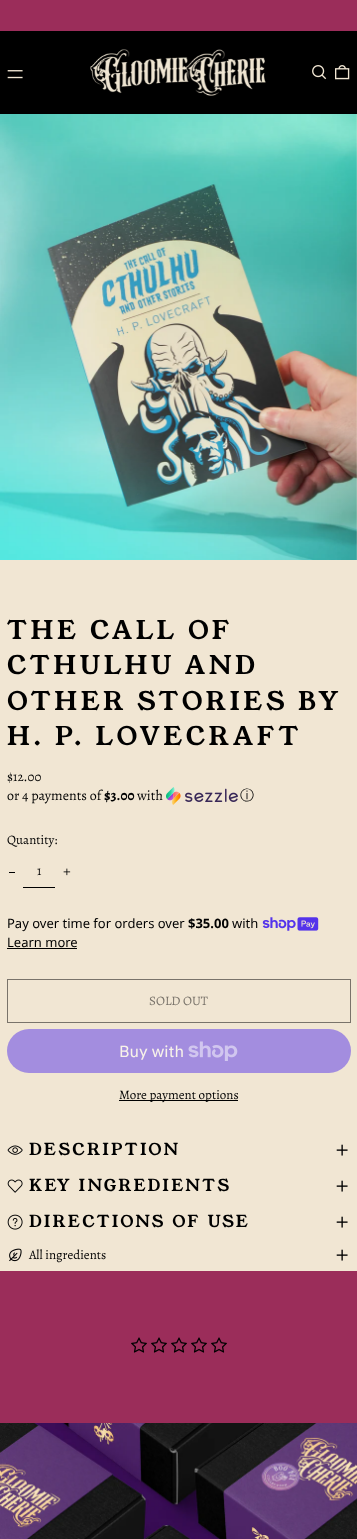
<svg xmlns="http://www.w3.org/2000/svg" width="357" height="1539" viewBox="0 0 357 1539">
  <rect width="100%" height="100%" fill="rgb(155,45,90)"/>
  <rect x="0" y="31" width="357" height="83" fill="rgb(0,0,0)"/>
  <image x="7" y="70" width="16" height="9" href="pic1.png"/>
  <image x="90" y="49" width="176" height="47" href="pic2.png"/>
  <image x="312" y="65" width="15" height="15" href="pic3.png"/>
  <image x="335" y="65" width="15" height="15" href="pic4.png"/>
  <rect x="0" y="114" width="357" height="1157" fill="rgb(241,230,211)"/>
  <image x="0" y="114" width="357" height="446" href="pic5.png"/>
  <g font-family="Young Serif" font-size="25.4" letter-spacing="3.75" fill="rgb(0,0,0)">
    <text>
      <tspan x="7" y="639">THE CALL OF</tspan>
      <tspan x="7" y="674">CTHULHU AND</tspan>
      <tspan x="7" y="710">OTHER STORIES BY</tspan>
      <tspan x="7" y="745">H. P. LOVECRAFT</tspan>
    </text>
  </g>
  <text x="7" y="781" font-family="Alegreya" font-size="13" fill="rgb(0,0,0)">$12.00</text>
  <text x="7" y="800" font-family="Alegreya" font-size="14" fill="rgb(0,0,0)">or 4 payments of</text>
  <text x="104" y="800" font-family="Alegreya" font-size="14" font-weight="bold" fill="rgb(0,0,0)">$3.00</text>
  <text x="137" y="800" font-family="Alegreya" font-size="14" fill="rgb(0,0,0)">with</text>
  <image x="166" y="787" width="72" height="18" href="pic6.png"/>
  <text x="240" y="800" font-family="WenQuanYi Zen Hei" font-size="14" font-weight="500" fill="rgb(0,0,0)">ⓘ</text>
  <text x="7" y="844" font-family="Alegreya" font-size="13" fill="rgb(0,0,0)">Quantity:</text>
  <rect x="9" y="872" width="6" height="1" fill="rgb(0,0,0)"/>
  <rect x="23" y="887" width="32" height="1" fill="rgb(0,0,0)"/>
  <text x="37" y="875" font-family="Alegreya" font-size="13" fill="rgb(0,0,0)">1</text>
  <image x="63" y="868" width="8" height="8" href="pic7.png"/>
  <text x="7" y="928" font-family="Noto Sans" font-size="13" fill="rgb(0,0,0)">Pay over time for orders over</text>
  <text x="188" y="928" font-family="Noto Sans" font-size="13" font-weight="bold" fill="rgb(0,0,0)">$35.00</text>
  <text x="232" y="928" font-family="Noto Sans" font-size="13" fill="rgb(0,0,0)">with</text>
  <image x="262" y="917" width="57" height="14" href="pic8.png"/>
  <text x="7" y="947" font-family="Noto Sans" font-size="13" fill="rgb(0,0,0)">Learn more</text>
  <rect x="7" y="948" width="70" height="1" fill="rgb(0,0,0)"/>
  <rect x="7.5" y="979.5" width="343" height="43" fill="none" stroke="rgb(121,115,106)"/>
  <text x="149" y="1005" font-family="Alegreya" font-size="13" fill="rgb(121,115,106)">SOLD OUT</text>
  <rect x="7" y="1029" width="344" height="44" rx="22" fill="rgb(163,141,223)"/>
  <text x="119" y="1057" font-family="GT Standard" font-size="16" fill="rgb(248,243,233)">Buy with</text>
  <image x="188" y="1041" width="50" height="20" href="pic9.png"/>
  <rect x="119" y="1100" width="119" height="1" fill="rgb(0,0,0)"/>
  <text x="119" y="1099" font-family="Alegreya" font-size="13" fill="rgb(0,0,0)">More payment options</text>
  <image x="7" y="1145" width="16" height="10" href="pic10.png"/>
  <text x="29" y="1155" font-family="Young Serif" font-size="16.25" letter-spacing="2.4" fill="rgb(0,0,0)">DESCRIPTION</text>
  <image x="336" y="1144" width="12" height="12" href="pic11.png"/>
  <image x="7" y="1179" width="16" height="14" href="pic12.png"/>
  <text x="29" y="1191" font-family="Young Serif" font-size="16.25" letter-spacing="2.4" fill="rgb(0,0,0)">KEY INGREDIENTS</text>
  <image x="336" y="1180" width="12" height="12" href="pic11.png"/>
  <image x="7" y="1214" width="16" height="16" href="pic13.png"/>
  <text x="29" y="1227" font-family="Young Serif" font-size="16.25" letter-spacing="2.4" fill="rgb(0,0,0)">DIRECTIONS OF USE</text>
  <image x="336" y="1216" width="12" height="12" href="pic11.png"/>
  <image x="9" y="1248" width="13" height="14" href="pic14.png"/>
  <text x="29" y="1259" font-family="Alegreya" font-size="13" fill="rgb(0,0,0)">All ingredients</text>
  <image x="336" y="1249" width="12" height="12" href="pic11.png"/>
  <image x="131" y="1337" width="16" height="16" href="pic15.png"/>
  <image x="151" y="1337" width="16" height="16" href="pic15.png"/>
  <image x="171" y="1337" width="16" height="16" href="pic15.png"/>
  <image x="191" y="1337" width="16" height="16" href="pic15.png"/>
  <image x="211" y="1337" width="16" height="16" href="pic15.png"/>
  <image x="0" y="1423" width="357" height="116" href="pic16.png"/>
</svg>
